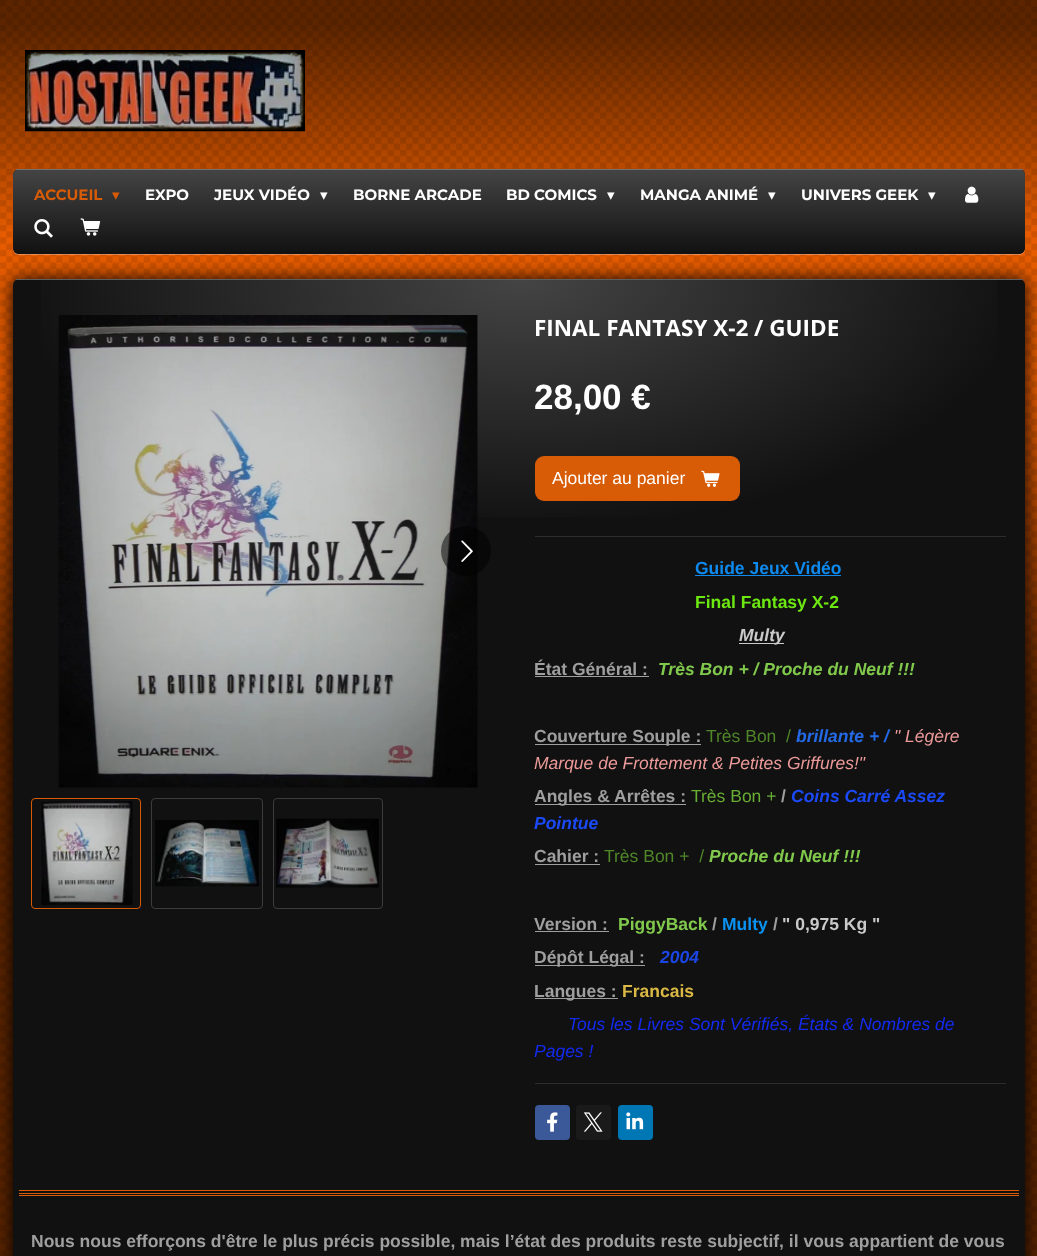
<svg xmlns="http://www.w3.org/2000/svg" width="1037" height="1256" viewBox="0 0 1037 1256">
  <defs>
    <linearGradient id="g1" gradientUnits="userSpaceOnUse" x1="519" y1="238" x2="519" y2="25"><stop offset="0" stop-color="rgb(0,0,0)" stop-opacity="0"/><stop offset="1" stop-color="rgb(0,0,0)" stop-opacity="0.6"/></linearGradient>
    <clipPath id="clip1"><rect x="13" y="169" width="1012" height="85" rx="6"/></clipPath>
    <linearGradient id="g2" gradientUnits="userSpaceOnUse" x1="519" y1="254" x2="519" y2="170"><stop offset="0" stop-color="rgb(17,17,17)"/><stop offset="1" stop-color="rgb(68,68,68)"/></linearGradient>
    <linearGradient id="g3" gradientUnits="userSpaceOnUse" x1="519" y1="700" x2="519" y2="388"><stop offset="0" stop-color="rgb(0,0,0)" stop-opacity="0.6"/><stop offset="1" stop-color="rgb(0,0,0)" stop-opacity="0"/></linearGradient>
    <radialGradient id="g4" gradientUnits="userSpaceOnUse" cx="0" cy="0" r="1" gradientTransform="matrix(506 0 0 250 519 280)"><stop offset="0" stop-color="rgb(68,68,68)"/><stop offset="1" stop-color="rgb(68,68,68)" stop-opacity="0"/></radialGradient>
  </defs>
  <rect width="100%" height="100%" fill="rgb(231,92,0)"/>
  <image x="0" y="0" width="1037" height="1256" href="pic1.png"/>
  <rect x="0" y="0" width="1037" height="25" fill="rgba(0,0,0,0.6)"/>
  <rect x="0" y="25" width="1037" height="205" fill="url(#g1)"/>
  <image x="25" y="50" width="280" height="82" href="pic2.png"/>
  <rect x="13" y="170" width="1012" height="85" rx="6" fill="rgba(255,255,255,0.3)" filter="blur(0.5px)"/>
  <rect x="13" y="169" width="1012" height="85" rx="6" fill="rgb(17,17,17)"/>
  <g clip-path="url(#clip1)">
    <path d="M13 170H1025V248C1025 251.5 1022.5 254 1019 254H19C15.5 254 13 251.5 13 248Z" fill="url(#g2)"/>
  </g>
  <rect x="16" y="169" width="1007" height="1" fill="rgb(114,114,114)"/>
  <text x="34" y="200" font-family="Montserrat" font-size="15" font-weight="bold" fill="rgb(216,91,6)">ACCUEIL</text>
  <text x="112" y="200" font-family="DejaVu Sans" font-size="15" fill="rgb(216,91,6)">▾</text>
  <g font-family="Montserrat" font-size="15" font-weight="bold" fill="rgb(255,255,255)">
    <text x="145" y="200">EXPO</text>
    <text x="214" y="200">JEUX VIDÉO</text>
  </g>
  <text x="320" y="200" font-family="DejaVu Sans" font-size="15" fill="rgb(255,255,255)">▾</text>
  <g font-family="Montserrat" font-size="15" font-weight="bold" fill="rgb(255,255,255)">
    <text x="353" y="200">BORNE ARCADE</text>
    <text x="506" y="200">BD COMICS</text>
  </g>
  <text x="607" y="200" font-family="DejaVu Sans" font-size="15" fill="rgb(255,255,255)">▾</text>
  <text x="640" y="200" font-family="Montserrat" font-size="15" font-weight="bold" fill="rgb(255,255,255)">MANGA ANIMÉ</text>
  <text x="768" y="200" font-family="DejaVu Sans" font-size="15" fill="rgb(255,255,255)">▾</text>
  <text x="801" y="200" font-family="Montserrat" font-size="15" font-weight="bold" fill="rgb(255,255,255)">UNIVERS GEEK</text>
  <text x="928" y="200" font-family="DejaVu Sans" font-size="15" fill="rgb(255,255,255)">▾</text>
  <image x="965" y="186" width="14" height="17" href="pic3.png"/>
  <image x="34" y="219" width="19" height="19" href="pic4.png"/>
  <image x="80" y="218" width="21" height="18" href="pic5.png"/>
  <rect x="0" y="399" width="1037" height="301" fill="url(#g3)"/>
  <rect x="0" y="700" width="1037" height="556" fill="rgba(0,0,0,0.6)"/>
  <rect x="13" y="279" width="1012" height="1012" rx="6" fill="rgb(0,0,0)" filter="blur(9.5px)"/>
  <rect x="13" y="279" width="1012" height="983" rx="6" fill="rgb(17,17,17)"/>
  <rect x="16" y="279" width="1007" height="1" fill="rgb(94,94,94)"/>
  <rect x="41" y="280" width="956" height="237" fill="url(#g4)"/>
  <image x="58" y="315" width="420" height="473" href="pic6.png"/>
  <circle cx="466" cy="551" r="25" fill="rgba(0,0,0,0.5)"/>
  <image x="461" y="540" width="12" height="22" href="pic7.png"/>
  <rect x="31.5" y="798.5" width="109" height="110" rx="3.5" fill="none" stroke="rgb(216,91,6)"/>
  <image x="41" y="801" width="92" height="104" href="pic8.png"/>
  <rect x="151.5" y="798.5" width="111" height="110" rx="3.5" fill="none" stroke="rgb(60,60,60)"/>
  <image x="155" y="820" width="104" height="67" href="pic9.png"/>
  <rect x="273.5" y="798.5" width="109" height="110" rx="3.5" fill="none" stroke="rgb(60,60,60)"/>
  <image x="276" y="818" width="103" height="70" href="pic10.png"/>
  <text x="534" y="336" font-family="Open Sans" font-size="22.5" font-weight="bold" fill="rgb(255,255,255)">FINAL FANTASY X-2 / GUIDE</text>
  <text x="534" y="409" font-family="Liberation Sans" font-size="35" font-weight="bold" fill="rgb(255,255,255)">28,00 €</text>
  <rect x="535" y="456" width="205" height="45" rx="9" fill="rgb(216,91,6)"/>
  <text x="552" y="484" font-family="Liberation Sans" font-size="17.5" fill="rgb(255,255,255)">Ajouter au panier</text>
  <image x="701" y="470" width="19" height="17" href="pic11.png"/>
  <rect x="535" y="536" width="471" height="1" fill="rgb(45,45,45)"/>
  <text x="695" y="574" font-family="Liberation Sans" font-size="17.5" font-weight="bold" fill="rgb(14,138,239)">Guide Jeux Vidéo</text>
  <rect x="695" y="575" width="146" height="1" fill="rgb(14,138,239)"/>
  <text x="695" y="608" font-family="Liberation Sans" font-size="17.5" font-weight="bold" fill="rgb(109,231,17)">Final Fantasy X-2</text>
  <rect x="739" y="643" width="45" height="1" fill="rgb(202,202,202)"/>
  <text x="739" y="641" font-family="Liberation Sans" font-size="17.5" font-weight="bold" font-style="italic" fill="rgb(202,202,202)">Multy</text>
  <text x="534" y="675" font-family="Liberation Sans" font-size="17.5" font-weight="bold" fill="rgb(159,159,159)">État Général :</text>
  <rect x="535" y="676" width="114" height="1" fill="rgb(159,159,159)"/>
  <text x="658" y="675" font-family="Liberation Sans" font-size="17.5" font-weight="bold" font-style="italic" fill="rgb(129,201,76)">Très Bon + / Proche du Neuf !!!</text>
  <rect x="535" y="744" width="166" height="1" fill="rgb(159,159,159)"/>
  <text x="534" y="742" font-family="Liberation Sans" font-size="17.5" font-weight="bold" fill="rgb(159,159,159)">Couverture Souple :</text>
  <text x="706" y="742" font-family="Liberation Sans" font-size="17.5" fill="rgb(80,135,41)" xml:space="preserve">Très Bon  /</text>
  <text x="796" y="742" font-family="Liberation Sans" font-size="17.5" font-weight="bold" font-style="italic" fill="rgb(36,106,230)">brillante + /</text>
  <g font-family="Liberation Sans" font-size="17.5" font-style="italic" fill="rgb(235,153,153)">
    <text x="894" y="742">" Légère</text>
    <text x="534" y="769">Marque de Frottement &amp; Petites Griffures!"</text>
  </g>
  <rect x="535" y="804" width="151" height="1" fill="rgb(159,159,159)"/>
  <text x="534" y="802" font-family="Liberation Sans" font-size="17.5" font-weight="bold" fill="rgb(159,159,159)">Angles &amp; Arrêtes :</text>
  <text x="691" y="802" font-family="Liberation Sans" font-size="17.5" fill="rgb(104,174,52)">Très Bon +</text>
  <text x="781" y="802" font-family="Liberation Sans" font-size="17.5" font-weight="bold" fill="rgb(159,159,159)">/</text>
  <g font-family="Liberation Sans" font-size="17.5" font-weight="bold" font-style="italic" fill="rgb(27,73,246)">
    <text x="791" y="802">Coins Carré Assez</text>
    <text x="534" y="829">Pointue</text>
  </g>
  <text x="534" y="862" font-family="Liberation Sans" font-size="17.5" font-weight="bold" fill="rgb(159,159,159)">Cahier :</text>
  <rect x="535" y="864" width="65" height="1" fill="rgb(159,159,159)"/>
  <text x="604" y="862" font-family="Liberation Sans" font-size="17.5" fill="rgb(80,135,41)" xml:space="preserve">Très Bon +  /</text>
  <text x="709" y="862" font-family="Liberation Sans" font-size="17.5" font-weight="bold" font-style="italic" fill="rgb(129,201,76)">Proche du Neuf !!!</text>
  <text x="534" y="930" font-family="Liberation Sans" font-size="17.5" font-weight="bold" fill="rgb(159,159,159)">Version :</text>
  <rect x="535" y="931" width="74" height="1" fill="rgb(159,159,159)"/>
  <text x="618" y="930" font-family="Liberation Sans" font-size="17.5" font-weight="bold" fill="rgb(129,201,76)">PiggyBack</text>
  <text x="712" y="930" font-family="Liberation Sans" font-size="17.5" font-weight="bold" fill="rgb(159,159,159)">/</text>
  <text x="722" y="930" font-family="Liberation Sans" font-size="17.5" font-weight="bold" fill="rgb(11,147,243)">Multy</text>
  <text x="773" y="930" font-family="Liberation Sans" font-size="17.5" font-weight="bold" fill="rgb(159,159,159)">/</text>
  <text x="782" y="930" font-family="Liberation Sans" font-size="17.5" font-weight="bold" fill="rgb(202,202,202)">" 0,975 Kg "</text>
  <rect x="535" y="965" width="110" height="1" fill="rgb(159,159,159)"/>
  <text x="534" y="963" font-family="Liberation Sans" font-size="17.5" font-weight="bold" fill="rgb(159,159,159)">Dépôt Légal :</text>
  <text x="660" y="963" font-family="Liberation Sans" font-size="17.5" font-weight="bold" font-style="italic" fill="rgb(27,70,228)">2004</text>
  <rect x="535" y="998" width="83" height="1" fill="rgb(159,159,159)"/>
  <text x="534" y="997" font-family="Liberation Sans" font-size="17.5" font-weight="bold" fill="rgb(159,159,159)">Langues :</text>
  <text x="622" y="997" font-family="Liberation Sans" font-size="17.5" font-weight="bold" fill="rgb(218,184,68)">Francais</text>
  <g font-family="Liberation Sans" font-size="17.5" font-style="italic" fill="rgb(20,42,239)">
    <text x="568" y="1030">Tous les Livres Sont Vérifiés, États &amp; Nombres de</text>
    <text x="534" y="1057">Pages !</text>
  </g>
  <rect x="535" y="1083" width="471" height="1" fill="rgb(45,45,45)"/>
  <rect x="535" y="1105" width="35" height="35" rx="4" fill="rgb(59,89,152)"/>
  <image x="547" y="1112" width="11" height="20" href="pic12.png"/>
  <rect x="576" y="1105" width="35" height="35" rx="4" fill="rgb(26,26,26)"/>
  <image x="583" y="1112" width="20" height="20" href="pic13.png"/>
  <rect x="618" y="1105" width="35" height="35" rx="4" fill="rgb(0,119,181)"/>
  <image x="626" y="1112" width="18" height="18" href="pic14.png"/>
  <rect x="19" y="1190" width="1000" height="1" fill="rgb(216,91,6)"/>
  <rect x="19" y="1193" width="1000" height="1" fill="rgb(216,91,6)"/>
  <rect x="19" y="1195" width="1000" height="1" fill="rgb(216,91,6)"/>
  <text x="31" y="1247" font-family="Liberation Sans" font-size="17.5" font-weight="bold" fill="rgb(159,159,159)">Nous nous efforçons d'être le plus précis possible, mais l’état des produits reste subjectif, il vous appartient de vous</text>
</svg>
